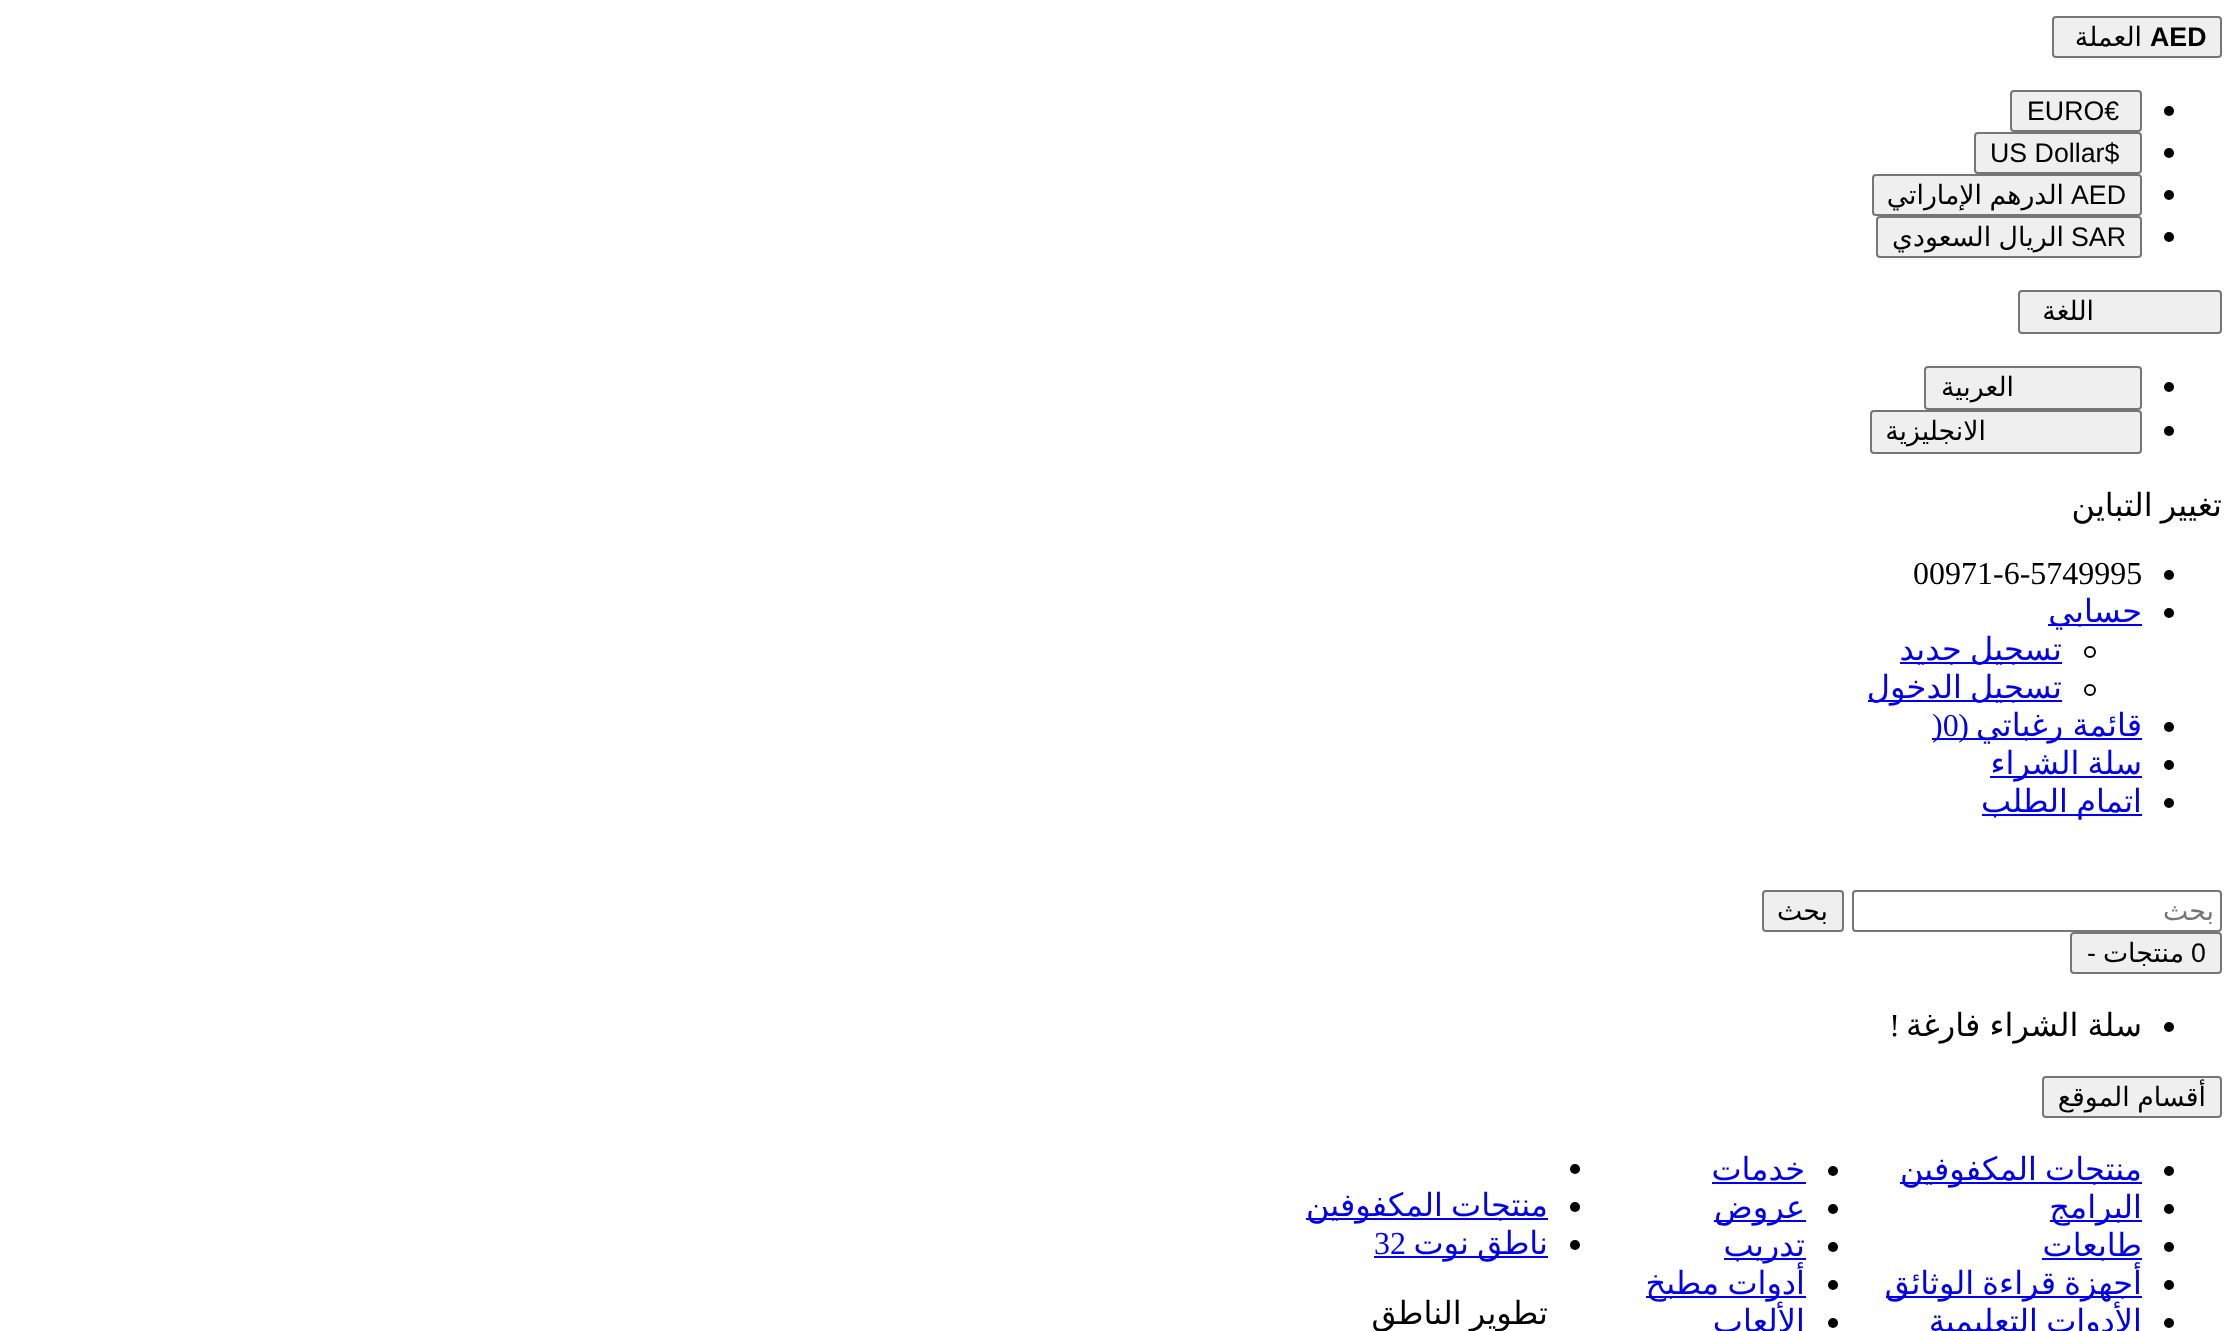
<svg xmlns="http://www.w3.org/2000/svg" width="2237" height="1331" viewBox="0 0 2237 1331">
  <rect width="100%" height="100%" fill="rgb(255,255,255)"/>
  <rect x="2053" y="17" width="168" height="40" rx="3" fill="rgb(239,239,239)" stroke="rgb(118,118,118)" stroke-width="2"/>
  <text x="2150" y="46" font-family="Liberation Sans" font-size="26.75" font-weight="bold" fill="rgb(0,0,0)">AED</text>
  <text x="2142" y="46" font-family="DejaVu Sans" font-size="26.75" direction="rtl" fill="rgb(0,0,0)">العملة</text>
  <circle cx="2169" cy="111" r="5" fill="rgb(0,0,0)"/>
  <rect x="2011" y="91" width="130" height="40" rx="3" fill="rgb(239,239,239)" stroke="rgb(118,118,118)" stroke-width="2"/>
  <text x="2027" y="120" font-family="Liberation Sans" font-size="26.75" fill="rgb(0,0,0)">EURO€</text>
  <circle cx="2169" cy="153" r="5" fill="rgb(0,0,0)"/>
  <rect x="1975" y="133" width="166" height="40" rx="3" fill="rgb(239,239,239)" stroke="rgb(118,118,118)" stroke-width="2"/>
  <text x="1990" y="162" font-family="Liberation Sans" font-size="26.75" fill="rgb(0,0,0)">US Dollar$</text>
  <circle cx="2169" cy="195" r="5" fill="rgb(0,0,0)"/>
  <rect x="1873" y="175" width="268" height="40" rx="3" fill="rgb(239,239,239)" stroke="rgb(118,118,118)" stroke-width="2"/>
  <text x="2071" y="204" font-family="Liberation Sans" font-size="26.75" fill="rgb(0,0,0)">AED</text>
  <text x="2064" y="204" word-spacing="-1" font-family="DejaVu Sans" font-size="26.75" direction="rtl" fill="rgb(0,0,0)">الدرهم الإماراتي</text>
  <circle cx="2169" cy="237" r="5" fill="rgb(0,0,0)"/>
  <rect x="1877" y="217" width="264" height="40" rx="3" fill="rgb(239,239,239)" stroke="rgb(118,118,118)" stroke-width="2"/>
  <text x="2071" y="246" font-family="Liberation Sans" font-size="26.75" fill="rgb(0,0,0)">SAR</text>
  <text x="2064" y="246" word-spacing="-1" font-family="DejaVu Sans" font-size="26.75" direction="rtl" fill="rgb(0,0,0)">الريال السعودي</text>
  <rect x="2019" y="291" width="202" height="42" rx="3" fill="rgb(239,239,239)" stroke="rgb(118,118,118)" stroke-width="2"/>
  <text x="2094" y="320" font-family="DejaVu Sans" font-size="26.75" direction="rtl" fill="rgb(0,0,0)">اللغة</text>
  <circle cx="2169" cy="387" r="5" fill="rgb(0,0,0)"/>
  <rect x="1925" y="367" width="216" height="42" rx="3" fill="rgb(239,239,239)" stroke="rgb(118,118,118)" stroke-width="2"/>
  <text x="2014" y="396" font-family="DejaVu Sans" font-size="26.75" direction="rtl" fill="rgb(0,0,0)">العربية</text>
  <circle cx="2169" cy="431" r="5" fill="rgb(0,0,0)"/>
  <rect x="1871" y="411" width="270" height="42" rx="3" fill="rgb(239,239,239)" stroke="rgb(118,118,118)" stroke-width="2"/>
  <text x="1986" y="440" font-family="DejaVu Sans" font-size="26.75" direction="rtl" fill="rgb(0,0,0)">الانجليزية</text>
  <text x="2222" y="516" word-spacing="-2" font-family="DejaVu Sans" font-size="32" direction="rtl" fill="rgb(0,0,0)">تغيير التباين</text>
  <circle cx="2169" cy="575" r="5" fill="rgb(0,0,0)"/>
  <text x="1913" y="584" font-family="Liberation Serif" font-size="32" fill="rgb(0,0,0)">00971-6-5749995</text>
  <circle cx="2169" cy="613" r="5" fill="rgb(0,0,0)"/>
  <rect x="2048" y="624" width="94" height="2" fill="rgb(0,0,238)"/>
  <text x="2142" y="622" font-family="DejaVu Sans" font-size="32" direction="rtl" fill="rgb(0,0,238)">حسابي</text>
  <circle cx="2090" cy="652" r="5" fill="none" stroke="rgb(0,0,0)" stroke-width="2"/>
  <rect x="1900" y="662" width="162" height="2" fill="rgb(0,0,238)"/>
  <text x="2062" y="660" word-spacing="-2" font-family="DejaVu Sans" font-size="32" direction="rtl" fill="rgb(0,0,238)">تسجيل جديد</text>
  <circle cx="2090" cy="690" r="5" fill="none" stroke="rgb(0,0,0)" stroke-width="2"/>
  <rect x="1868" y="700" width="194" height="2" fill="rgb(0,0,238)"/>
  <text x="2062" y="698" word-spacing="-2" font-family="DejaVu Sans" font-size="32" direction="rtl" fill="rgb(0,0,238)">تسجيل الدخول</text>
  <circle cx="2169" cy="727" r="5" fill="rgb(0,0,0)"/>
  <rect x="1932" y="738" width="210" height="2" fill="rgb(0,0,238)"/>
  <text x="2142" y="736" word-spacing="-1" font-family="DejaVu Sans" font-size="32" direction="rtl" fill="rgb(0,0,238)">قائمة رغباتي</text>
  <text x="1969" y="736" font-family="Liberation Serif" font-size="32" direction="rtl" fill="rgb(0,0,238)">(</text>
  <text x="1932" y="736" font-family="Liberation Serif" font-size="32" fill="rgb(0,0,238)">)0</text>
  <circle cx="2169" cy="765" r="5" fill="rgb(0,0,0)"/>
  <rect x="1990" y="776" width="152" height="2" fill="rgb(0,0,238)"/>
  <text x="2142" y="774" word-spacing="-2" font-family="DejaVu Sans" font-size="32" direction="rtl" fill="rgb(0,0,238)">سلة الشراء</text>
  <circle cx="2169" cy="803" r="5" fill="rgb(0,0,0)"/>
  <rect x="1982" y="814" width="160" height="2" fill="rgb(0,0,238)"/>
  <text x="2142" y="812" word-spacing="-2" font-family="DejaVu Sans" font-size="32" direction="rtl" fill="rgb(0,0,238)">اتمام الطلب</text>
  <rect x="1853" y="891" width="368" height="40" rx="3" fill="none" stroke="rgb(118,118,118)" stroke-width="2"/>
  <text x="2214" y="920" font-family="DejaVu Sans" font-size="26.75" direction="rtl" fill="rgb(117,117,117)">بحث</text>
  <rect x="1763" y="891" width="80" height="40" rx="3" fill="rgb(239,239,239)" stroke="rgb(118,118,118)" stroke-width="2"/>
  <text x="1828" y="920" font-family="DejaVu Sans" font-size="26.75" direction="rtl" fill="rgb(0,0,0)">بحث</text>
  <rect x="2071" y="933" width="150" height="40" rx="3" fill="rgb(239,239,239)" stroke="rgb(118,118,118)" stroke-width="2"/>
  <text x="2191" y="962" font-family="Liberation Sans" font-size="26.75" fill="rgb(0,0,0)">0</text>
  <text x="2184" y="962" font-family="DejaVu Sans" font-size="26.75" direction="rtl" fill="rgb(0,0,0)">منتجات</text>
  <text x="2096" y="962" font-family="Liberation Sans" font-size="26.75" direction="rtl" fill="rgb(0,0,0)">-</text>
  <circle cx="2169" cy="1027" r="5" fill="rgb(0,0,0)"/>
  <text x="2142" y="1036" word-spacing="-1" font-family="DejaVu Sans" font-size="32" direction="rtl" fill="rgb(0,0,0)">سلة الشراء فارغة</text>
  <text x="1900" y="1036" font-family="Liberation Serif" font-size="32" direction="rtl" fill="rgb(0,0,0)">!</text>
  <rect x="2043" y="1077" width="178" height="40" rx="3" fill="rgb(239,239,239)" stroke="rgb(118,118,118)" stroke-width="2"/>
  <text x="2206" y="1106" word-spacing="-1" font-family="DejaVu Sans" font-size="26.75" direction="rtl" fill="rgb(0,0,0)">أقسام الموقع</text>
  <circle cx="2169" cy="1171" r="5" fill="rgb(0,0,0)"/>
  <rect x="1900" y="1182" width="242" height="2" fill="rgb(0,0,238)"/>
  <text x="2142" y="1180" word-spacing="-2" font-family="DejaVu Sans" font-size="32" direction="rtl" fill="rgb(0,0,238)">منتجات المكفوفين</text>
  <circle cx="2169" cy="1209" r="5" fill="rgb(0,0,0)"/>
  <rect x="2050" y="1220" width="92" height="2" fill="rgb(0,0,238)"/>
  <text x="2142" y="1218" font-family="DejaVu Sans" font-size="32" direction="rtl" fill="rgb(0,0,238)">البرامج</text>
  <circle cx="2169" cy="1247" r="5" fill="rgb(0,0,0)"/>
  <rect x="2042" y="1258" width="100" height="2" fill="rgb(0,0,238)"/>
  <text x="2142" y="1256" font-family="DejaVu Sans" font-size="32" direction="rtl" fill="rgb(0,0,238)">طابعات</text>
  <circle cx="2169" cy="1285" r="5" fill="rgb(0,0,0)"/>
  <rect x="1886" y="1296" width="256" height="2" fill="rgb(0,0,238)"/>
  <text x="2142" y="1294" word-spacing="-2" font-family="DejaVu Sans" font-size="32" direction="rtl" fill="rgb(0,0,238)">أجهزة قراءة الوثائق</text>
  <circle cx="2169" cy="1323" r="5" fill="rgb(0,0,0)"/>
  <text x="2142" y="1332" word-spacing="-2" font-family="DejaVu Sans" font-size="32" direction="rtl" fill="rgb(0,0,238)">الأدوات التعليمية</text>
  <circle cx="1833" cy="1171" r="5" fill="rgb(0,0,0)"/>
  <text x="1805" y="1180" font-family="DejaVu Sans" font-size="32" direction="rtl" fill="rgb(0,0,238)">خدمات</text>
  <rect x="1712" y="1182" width="94" height="2" fill="rgb(0,0,238)"/>
  <circle cx="1833" cy="1209" r="5" fill="rgb(0,0,0)"/>
  <rect x="1714" y="1220" width="92" height="2" fill="rgb(0,0,238)"/>
  <text x="1805" y="1218" font-family="DejaVu Sans" font-size="32" direction="rtl" fill="rgb(0,0,238)">عروض</text>
  <circle cx="1833" cy="1247" r="5" fill="rgb(0,0,0)"/>
  <rect x="1724" y="1258" width="82" height="2" fill="rgb(0,0,238)"/>
  <text x="1805" y="1256" font-family="DejaVu Sans" font-size="32" direction="rtl" fill="rgb(0,0,238)">تدريب</text>
  <circle cx="1833" cy="1285" r="5" fill="rgb(0,0,0)"/>
  <rect x="1646" y="1296" width="160" height="2" fill="rgb(0,0,238)"/>
  <text x="1805" y="1294" word-spacing="-2" font-family="DejaVu Sans" font-size="32" direction="rtl" fill="rgb(0,0,238)">أدوات مطبخ</text>
  <circle cx="1833" cy="1323" r="5" fill="rgb(0,0,0)"/>
  <text x="1805" y="1332" font-family="DejaVu Sans" font-size="32" direction="rtl" fill="rgb(0,0,238)">الألعاب</text>
  <circle cx="1575" cy="1169" r="5" fill="rgb(0,0,0)"/>
  <circle cx="1575" cy="1207" r="5" fill="rgb(0,0,0)"/>
  <rect x="1306" y="1218" width="242" height="2" fill="rgb(0,0,238)"/>
  <text x="1548" y="1216" word-spacing="-2" font-family="DejaVu Sans" font-size="32" direction="rtl" fill="rgb(0,0,238)">منتجات المكفوفين</text>
  <circle cx="1575" cy="1245" r="5" fill="rgb(0,0,0)"/>
  <rect x="1374" y="1256" width="174" height="2" fill="rgb(0,0,238)"/>
  <text x="1548" y="1254" word-spacing="-2" font-family="DejaVu Sans" font-size="32" direction="rtl" fill="rgb(0,0,238)">ناطق نوت</text>
  <text x="1374" y="1254" font-family="Liberation Serif" font-size="32" fill="rgb(0,0,238)">32</text>
  <text x="1548" y="1324" word-spacing="-2" font-family="DejaVu Sans" font-size="32" direction="rtl" fill="rgb(0,0,0)">تطوير الناطق</text>
</svg>
